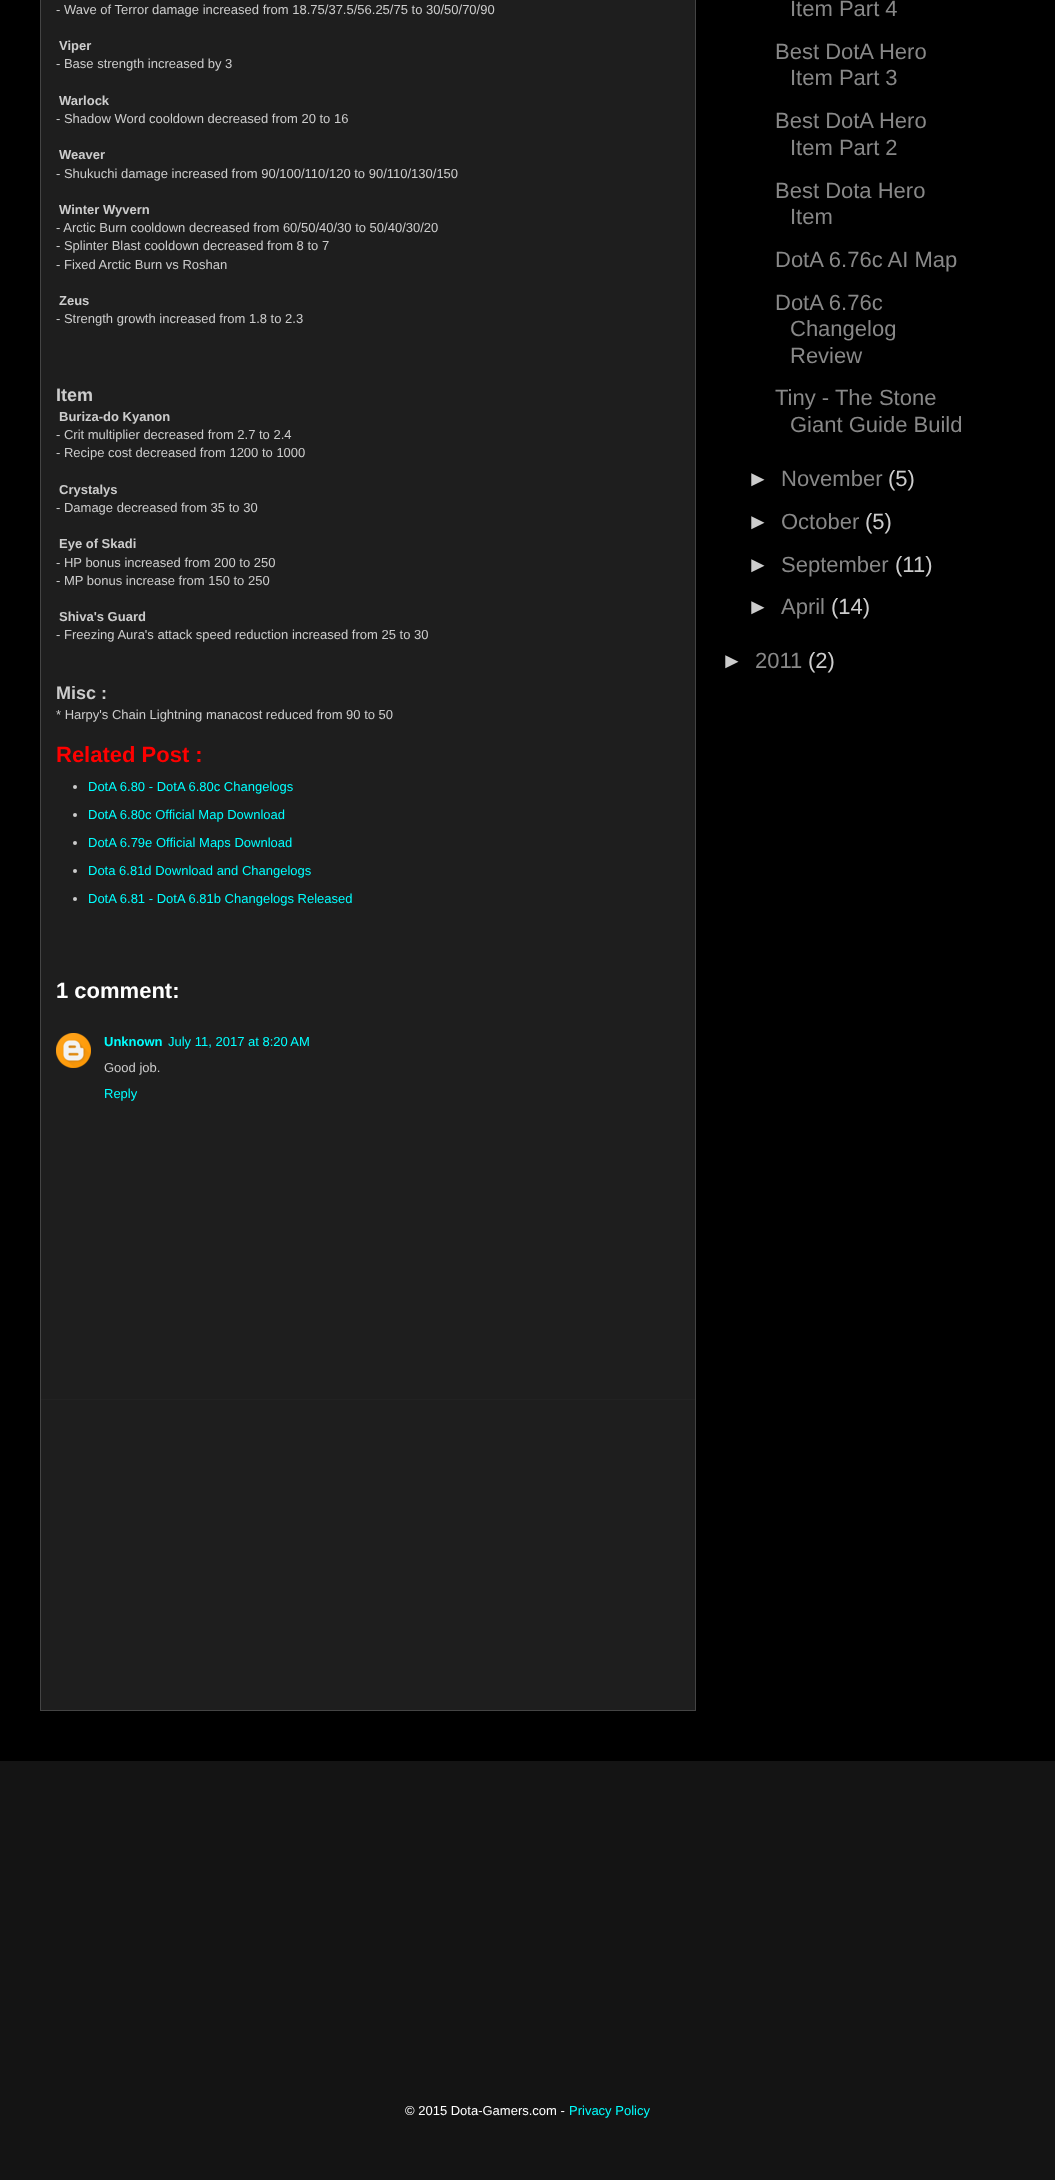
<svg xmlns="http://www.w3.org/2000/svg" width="1055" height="2180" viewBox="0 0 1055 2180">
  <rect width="100%" height="100%" fill="rgb(0,0,0)"/>
  <rect x="40.5" y="-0.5" width="655" height="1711" fill="rgb(30,30,30)" stroke="rgb(68,68,68)"/>
  <text x="56" y="14" font-family="Liberation Sans" font-size="13" fill="rgb(204,204,204)">- Wave of Terror damage increased from 18.75/37.5/56.25/75 to 30/50/70/90</text>
  <text x="59" y="50" font-family="Liberation Sans" font-size="13" font-weight="bold" fill="rgb(204,204,204)">Viper</text>
  <text x="56" y="68" font-family="Liberation Sans" font-size="13" fill="rgb(204,204,204)">- Base strength increased by 3</text>
  <text x="59" y="105" font-family="Liberation Sans" font-size="13" font-weight="bold" fill="rgb(204,204,204)">Warlock</text>
  <text x="56" y="123" font-family="Liberation Sans" font-size="13" fill="rgb(204,204,204)">- Shadow Word cooldown decreased from 20 to 16</text>
  <text x="59" y="159" font-family="Liberation Sans" font-size="13" font-weight="bold" fill="rgb(204,204,204)">Weaver</text>
  <text x="56" y="178" font-family="Liberation Sans" font-size="13" fill="rgb(204,204,204)">- Shukuchi damage increased from 90/100/110/120 to 90/110/130/150</text>
  <text x="59" y="214" font-family="Liberation Sans" font-size="13" font-weight="bold" fill="rgb(204,204,204)">Winter Wyvern</text>
  <g font-family="Liberation Sans" font-size="13" fill="rgb(204,204,204)">
    <text>
      <tspan x="56" y="232">- Arctic Burn cooldown decreased from 60/50/40/30 to 50/40/30/20</tspan>
      <tspan x="56" y="250">- Splinter Blast cooldown decreased from 8 to 7</tspan>
      <tspan x="56" y="269">- Fixed Arctic Burn vs Roshan</tspan>
    </text>
  </g>
  <text x="59" y="305" font-family="Liberation Sans" font-size="13" font-weight="bold" fill="rgb(204,204,204)">Zeus</text>
  <text x="56" y="323" font-family="Liberation Sans" font-size="13" fill="rgb(204,204,204)">- Strength growth increased from 1.8 to 2.3</text>
  <text x="56" y="401" font-family="Liberation Sans" font-size="18" font-weight="bold" fill="rgb(204,204,204)">Item</text>
  <text x="59" y="421" font-family="Liberation Sans" font-size="13" font-weight="bold" fill="rgb(204,204,204)">Buriza-do Kyanon</text>
  <g font-family="Liberation Sans" font-size="13" fill="rgb(204,204,204)">
    <text>
      <tspan x="56" y="439">- Crit multiplier decreased from 2.7 to 2.4</tspan>
      <tspan x="56" y="457">- Recipe cost decreased from 1200 to 1000</tspan>
    </text>
  </g>
  <text x="59" y="494" font-family="Liberation Sans" font-size="13" font-weight="bold" fill="rgb(204,204,204)">Crystalys</text>
  <text x="56" y="512" font-family="Liberation Sans" font-size="13" fill="rgb(204,204,204)">- Damage decreased from 35 to 30</text>
  <text x="59" y="548" font-family="Liberation Sans" font-size="13" font-weight="bold" fill="rgb(204,204,204)">Eye of Skadi</text>
  <g font-family="Liberation Sans" font-size="13" fill="rgb(204,204,204)">
    <text>
      <tspan x="56" y="567">- HP bonus increased from 200 to 250</tspan>
      <tspan x="56" y="585">- MP bonus increase from 150 to 250</tspan>
    </text>
  </g>
  <text x="59" y="621" font-family="Liberation Sans" font-size="13" font-weight="bold" fill="rgb(204,204,204)">Shiva's Guard</text>
  <text x="56" y="639" font-family="Liberation Sans" font-size="13" fill="rgb(204,204,204)">- Freezing Aura's attack speed reduction increased from 25 to 30</text>
  <text x="56" y="699" font-family="Liberation Sans" font-size="18" font-weight="bold" fill="rgb(204,204,204)">Misc :</text>
  <text x="56" y="719" font-family="Liberation Sans" font-size="13" fill="rgb(204,204,204)">* Harpy's Chain Lightning manacost reduced from 90 to 50</text>
  <text x="56" y="762" font-family="Liberation Sans" font-size="22" font-weight="bold" fill="rgb(255,0,0)">Related Post :</text>
  <circle cx="75" cy="787" r="2" fill="rgb(204,204,204)"/>
  <text x="88" y="791" font-family="Liberation Sans" font-size="13" fill="rgb(0,255,255)">DotA 6.80 - DotA 6.80c Changelogs</text>
  <circle cx="75" cy="815" r="2" fill="rgb(204,204,204)"/>
  <text x="88" y="819" font-family="Liberation Sans" font-size="13" fill="rgb(0,255,255)">DotA 6.80c Official Map Download</text>
  <circle cx="75" cy="843" r="2" fill="rgb(204,204,204)"/>
  <text x="88" y="847" font-family="Liberation Sans" font-size="13" fill="rgb(0,255,255)">DotA 6.79e Official Maps Download</text>
  <circle cx="75" cy="871" r="2" fill="rgb(204,204,204)"/>
  <text x="88" y="875" font-family="Liberation Sans" font-size="13" fill="rgb(0,255,255)">Dota 6.81d Download and Changelogs</text>
  <circle cx="75" cy="899" r="2" fill="rgb(204,204,204)"/>
  <text x="88" y="903" font-family="Liberation Sans" font-size="13" fill="rgb(0,255,255)">DotA 6.81 - DotA 6.81b Changelogs Released</text>
  <text x="56" y="998" font-family="Liberation Sans" font-size="22" font-weight="bold" fill="rgb(255,255,255)">1 comment:</text>
  <image x="56" y="1033" width="35" height="35" href="pic1.png"/>
  <text x="104" y="1046" font-family="Liberation Sans" font-size="13" font-weight="bold" fill="rgb(0,255,255)">Unknown</text>
  <text x="168" y="1046" font-family="Liberation Sans" font-size="13" fill="rgb(0,255,255)">July 11, 2017 at 8:20 AM</text>
  <text x="104" y="1072" font-family="Liberation Sans" font-size="13" fill="rgb(204,204,204)">Good job.</text>
  <text x="104" y="1098" font-family="Liberation Sans" font-size="13" fill="rgb(0,255,255)">Reply</text>
  <rect x="41" y="1399" width="654" height="1" fill="rgb(34,34,34)"/>
  <g font-family="Liberation Sans" font-size="22" fill="rgb(136,136,136)">
    <text x="790" y="16">Item Part 4</text>
    <text x="775" y="59">Best DotA Hero</text>
    <text x="790" y="85">Item Part 3</text>
    <text x="775" y="128">Best DotA Hero</text>
    <text x="790" y="155">Item Part 2</text>
    <text x="775" y="198">Best Dota Hero</text>
    <text x="790" y="224">Item</text>
    <text>
      <tspan x="775" y="267">DotA 6.76c AI Map</tspan>
      <tspan x="775" y="310">DotA 6.76c</tspan>
    </text>
    <text>
      <tspan x="790" y="336">Changelog</tspan>
      <tspan x="790" y="363">Review</tspan>
    </text>
    <text x="775" y="405">Tiny - The Stone</text>
    <text x="790" y="432">Giant Guide Build</text>
  </g>
  <text x="747" y="486" font-family="Liberation Sans" font-size="22" fill="rgb(204,204,204)">►</text>
  <text x="781" y="486" font-family="Liberation Sans" font-size="22" fill="rgb(136,136,136)">November</text>
  <g font-family="Liberation Sans" font-size="22" fill="rgb(204,204,204)">
    <text x="888" y="486">(5)</text>
    <text x="747" y="529">►</text>
  </g>
  <text x="781" y="529" font-family="Liberation Sans" font-size="22" fill="rgb(136,136,136)">October</text>
  <g font-family="Liberation Sans" font-size="22" fill="rgb(204,204,204)">
    <text x="865" y="529">(5)</text>
    <text x="747" y="572">►</text>
  </g>
  <text x="781" y="572" font-family="Liberation Sans" font-size="22" fill="rgb(136,136,136)">September</text>
  <g font-family="Liberation Sans" font-size="22" fill="rgb(204,204,204)">
    <text x="895" y="572">(11)</text>
    <text x="747" y="614">►</text>
  </g>
  <text x="781" y="614" font-family="Liberation Sans" font-size="22" fill="rgb(136,136,136)">April</text>
  <g font-family="Liberation Sans" font-size="22" fill="rgb(204,204,204)">
    <text x="831" y="614">(14)</text>
    <text x="721" y="668">►</text>
  </g>
  <text x="755" y="668" font-family="Liberation Sans" font-size="22" fill="rgb(136,136,136)">2011</text>
  <text x="808" y="668" font-family="Liberation Sans" font-size="22" fill="rgb(204,204,204)">(2)</text>
  <rect x="0" y="1761" width="1055" height="419" fill="rgb(20,20,20)"/>
  <text x="405" y="2115" font-family="Liberation Sans" font-size="13" fill="rgb(255,255,255)">© 2015 Dota-Gamers.com -</text>
  <text x="569" y="2115" font-family="Liberation Sans" font-size="13" fill="rgb(0,255,255)">Privacy Policy</text>
</svg>
